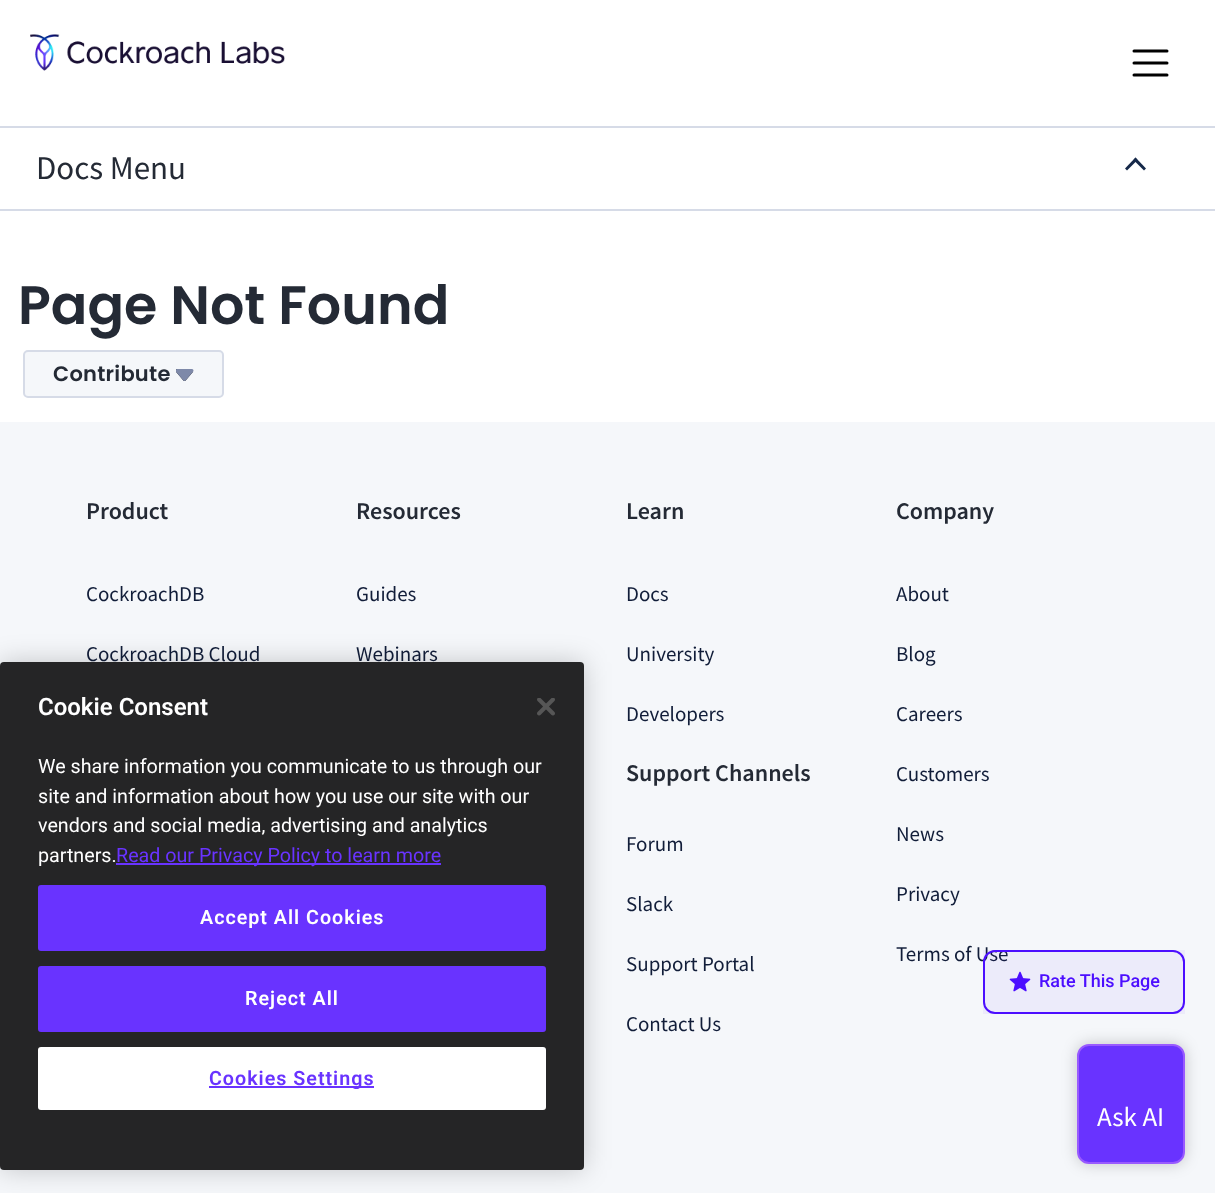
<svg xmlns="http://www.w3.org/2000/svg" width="1215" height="1193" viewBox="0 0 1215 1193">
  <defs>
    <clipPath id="clip1"><path d="M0 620H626V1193H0ZM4 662H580C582 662 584 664 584 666V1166C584 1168 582 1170 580 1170H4C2 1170 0 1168 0 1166V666C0 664 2 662 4 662Z" clip-rule="evenodd"/></clipPath>
  </defs>
  <rect width="100%" height="100%" fill="rgb(255,255,255)"/>
  <image x="30" y="34" width="255" height="37" href="pic1.png"/>
  <path d="M1134 51H1167M1134 63H1167M1134 75H1167" fill="none" stroke="rgb(0,0,0)" stroke-width="3" stroke-linecap="round"/>
  <rect x="0" y="126" width="1215" height="2" fill="rgb(214,219,231)"/>
  <rect x="0" y="209" width="1215" height="2" fill="rgb(214,219,231)"/>
  <text x="36" y="179" font-family="Source Sans Pro" font-size="33" fill="rgb(36,42,53)">Docs Menu</text>
  <path d="M1135.5 157.5L1146 168.5L1144 170.5L1133.5 160Z" fill="rgb(21,40,73)"/>
  <path d="M1135.5 157.5L1137.5 160L1127 170.5L1125 168.5Z" fill="rgb(21,40,73)"/>
  <text x="18" y="324" font-family="Poppins" font-size="54" font-weight="600" fill="rgb(36,42,53)">Page Not Found</text>
  <rect x="24" y="351" width="199" height="46" rx="4" fill="rgb(245,247,250)" stroke="rgb(214,219,231)" stroke-width="2"/>
  <text x="53" y="381" font-family="Poppins" font-size="21" font-weight="600" letter-spacing="0.25" fill="rgb(36,42,53)">Contribute</text>
  <image x="176" y="369" width="18" height="12" href="pic2.png"/>
  <rect x="0" y="422" width="1215" height="771" fill="rgb(245,247,250)"/>
  <text x="86" y="519" font-family="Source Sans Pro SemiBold" font-size="24" font-weight="600" fill="rgb(36,42,53)">Product</text>
  <g font-family="Source Sans Pro" font-size="21" fill="rgb(17,29,57)">
    <text x="86" y="601">CockroachDB</text>
    <text x="86" y="661">CockroachDB Cloud</text>
  </g>
  <text x="356" y="519" font-family="Source Sans Pro SemiBold" font-size="24" font-weight="600" fill="rgb(36,42,53)">Resources</text>
  <g font-family="Source Sans Pro" font-size="21" fill="rgb(17,29,57)">
    <text x="356" y="601">Guides</text>
    <text x="356" y="661">Webinars</text>
  </g>
  <text x="626" y="519" font-family="Source Sans Pro SemiBold" font-size="24" font-weight="600" fill="rgb(36,42,53)">Learn</text>
  <g font-family="Source Sans Pro" font-size="21" fill="rgb(17,29,57)">
    <text x="626" y="601">Docs</text>
    <text x="626" y="661">University</text>
    <text x="626" y="721">Developers</text>
  </g>
  <text x="626" y="781" font-family="Source Sans Pro SemiBold" font-size="24" font-weight="600" fill="rgb(36,42,53)">Support Channels</text>
  <g font-family="Source Sans Pro" font-size="21" fill="rgb(17,29,57)">
    <text x="626" y="851">Forum</text>
    <text x="626" y="911">Slack</text>
    <text x="626" y="971">Support Portal</text>
    <text x="626" y="1031">Contact Us</text>
  </g>
  <text x="896" y="519" font-family="Source Sans Pro SemiBold" font-size="24" font-weight="600" fill="rgb(36,42,53)">Company</text>
  <g font-family="Source Sans Pro" font-size="21" fill="rgb(17,29,57)">
    <text x="896" y="601">About</text>
    <text x="896" y="661">Blog</text>
    <text x="896" y="721">Careers</text>
    <text x="896" y="781">Customers</text>
    <text x="896" y="841">News</text>
    <text x="896" y="901">Privacy</text>
    <text x="896" y="961">Terms of Use</text>
  </g>
  <g clip-path="url(#clip1)">
    <rect x="0" y="662" width="584" height="508" rx="4" fill="rgba(0,0,0,0.2)" filter="blur(13.5px)"/>
  </g>
  <rect x="0" y="662" width="584" height="508" rx="4" fill="rgba(0,0,0,0.85)"/>
  <text x="38" y="715" font-family="Roboto" font-size="24" font-weight="600" fill="rgb(255,255,255)">Cookie Consent</text>
  <g font-family="Roboto" font-size="19.7" fill="rgb(255,255,255)">
    <text>
      <tspan x="38" y="773">We share information you communicate to us through our</tspan>
      <tspan x="38" y="803">site and information about how you use our site with our</tspan>
      <tspan x="38" y="832">vendors and social media, advertising and analytics</tspan>
      <tspan x="38" y="862">partners.</tspan>
    </text>
  </g>
  <rect x="116" y="863" width="325" height="2" fill="rgb(105,51,255)"/>
  <text x="116" y="862" font-family="Roboto" font-size="19.7" fill="rgb(105,51,255)">Read our Privacy Policy to learn more</text>
  <image x="537" y="698" width="18" height="18" href="pic3.png"/>
  <rect x="39" y="886" width="506" height="64" rx="2" fill="rgb(105,51,255)" stroke="rgb(105,51,255)" stroke-width="2"/>
  <text x="200" y="924" font-family="Roboto" font-size="19.7" font-weight="600" letter-spacing="1" fill="rgb(255,255,255)">Accept All Cookies</text>
  <rect x="39" y="967" width="506" height="64" rx="2" fill="rgb(105,51,255)" stroke="rgb(105,51,255)" stroke-width="2"/>
  <text x="245" y="1005" font-family="Roboto" font-size="19.7" font-weight="600" letter-spacing="1" fill="rgb(255,255,255)">Reject All</text>
  <rect x="38" y="1047" width="508" height="63" rx="3" fill="rgb(255,255,255)"/>
  <rect x="209" y="1086" width="165" height="2" fill="rgb(105,51,255)"/>
  <text x="209" y="1085" font-family="Roboto" font-size="19.7" font-weight="600" letter-spacing="1" fill="rgb(105,51,255)">Cookies Settings</text>
  <rect x="983" y="950" width="202" height="64" fill="rgba(76,14,255,0.05)"/>
  <rect x="984" y="951" width="200" height="62" rx="11" fill="none" stroke="rgb(76,14,255)" stroke-width="2"/>
  <image x="1009" y="971" width="22" height="21" href="pic4.png"/>
  <text x="1039" y="987" font-family="Roboto" font-size="18" font-weight="500" fill="rgb(76,14,255)">Rate This Page</text>
  <rect x="1077" y="1044" width="108" height="120" rx="12" fill="rgba(0,0,0,0.2)" filter="blur(7.5px)"/>
  <rect x="1078" y="1045" width="106" height="118" rx="11" fill="rgb(105,51,255)" stroke="rgb(153,90,255)" stroke-width="2"/>
  <text x="1097" y="1126" font-family="Source Sans Pro" font-size="27" fill="rgb(255,255,255)">Ask AI</text>
</svg>
